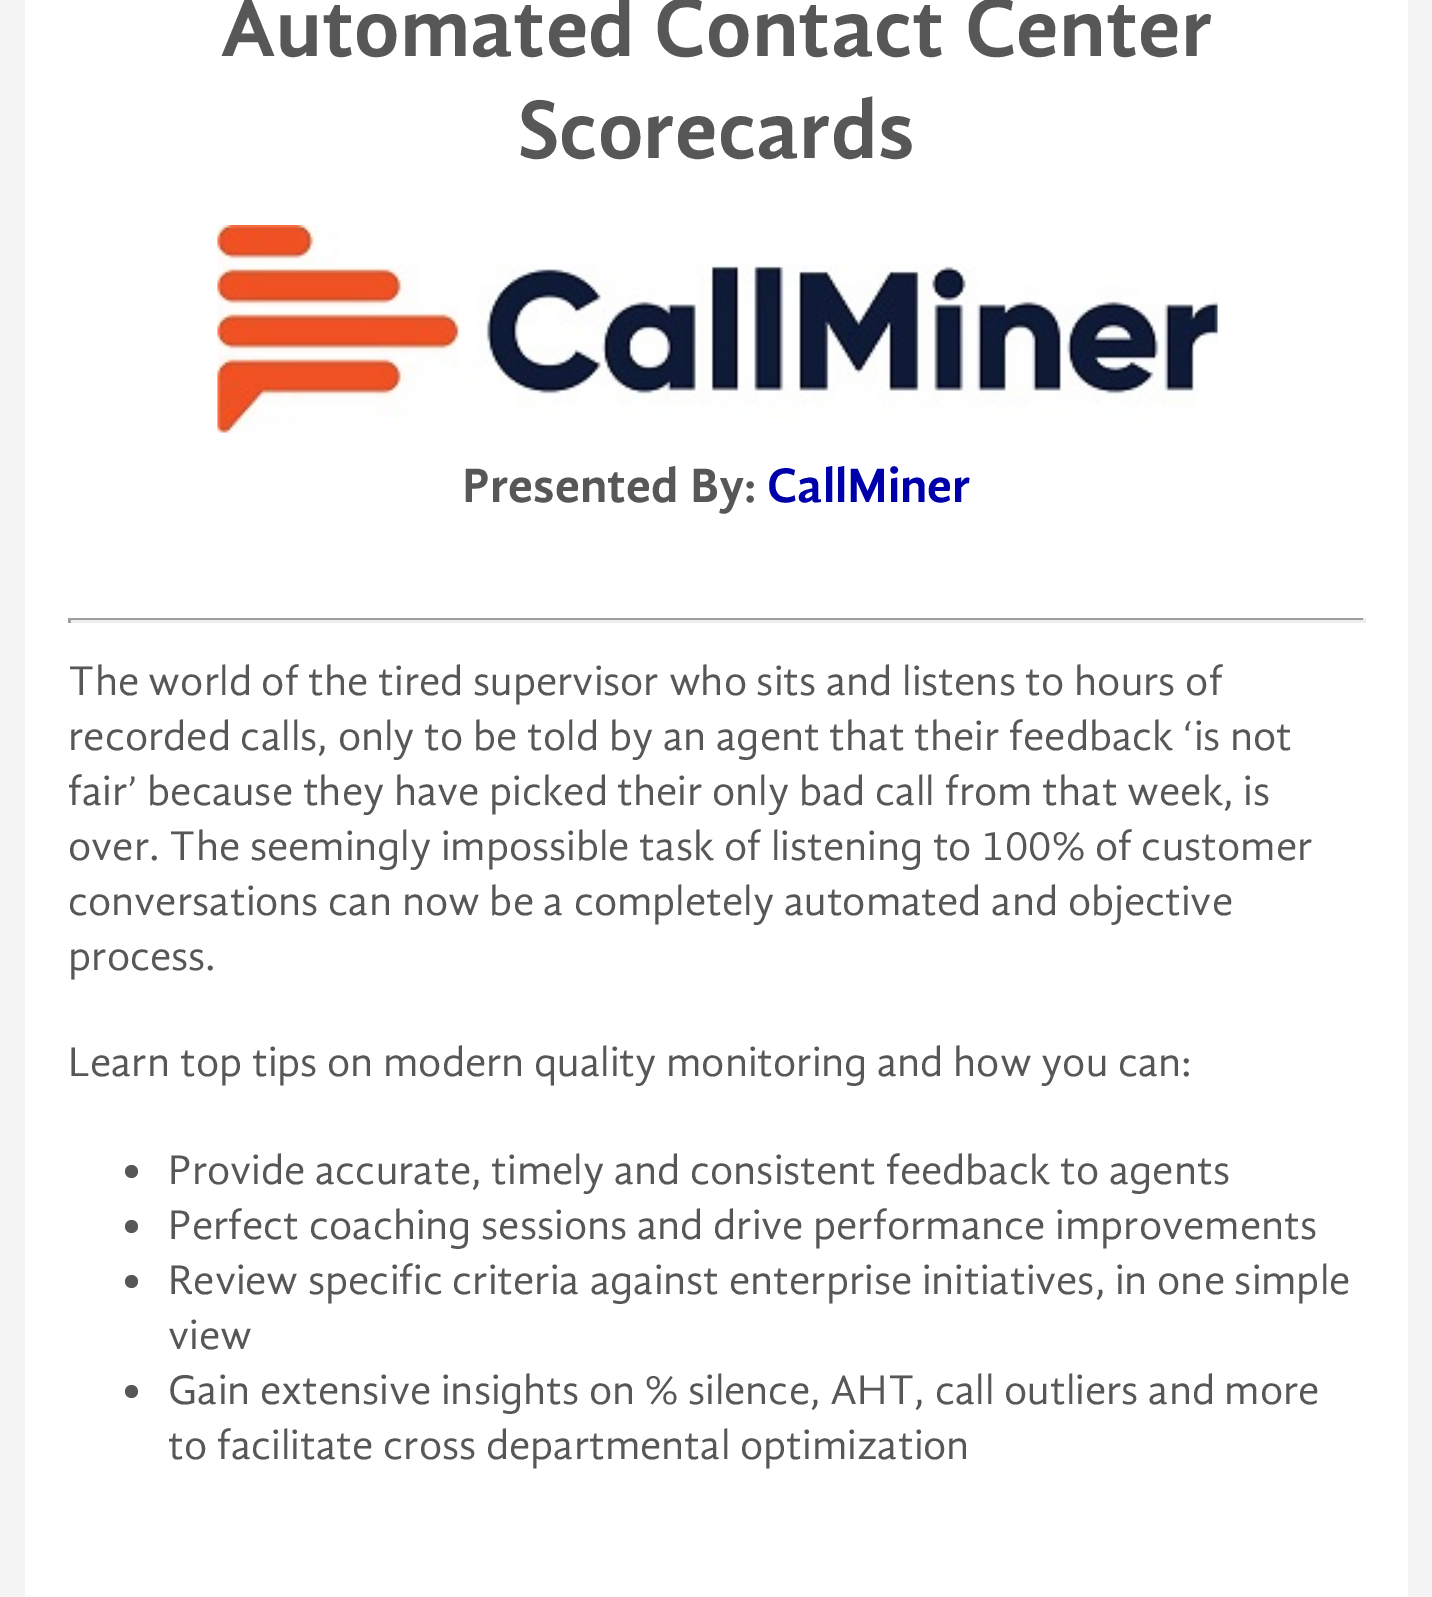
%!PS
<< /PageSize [1432 1597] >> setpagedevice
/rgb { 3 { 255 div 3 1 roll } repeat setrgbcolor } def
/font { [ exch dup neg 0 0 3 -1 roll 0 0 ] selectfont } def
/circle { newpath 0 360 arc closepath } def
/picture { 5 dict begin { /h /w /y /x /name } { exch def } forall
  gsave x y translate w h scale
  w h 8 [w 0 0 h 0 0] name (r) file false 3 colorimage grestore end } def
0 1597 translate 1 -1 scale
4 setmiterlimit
244 244 244 rgb
0 0 1432 1597 rectfill
255 255 255 rgb
25 0 1383 1597 rectfill
(img/1.rgb) 217 225 1001 208 picture
[
  [68 618 1297 2 159 159 159]
  [1363 618 3 5 238 238 238]
  [68 620 1297 3 238 238 238]
  [68 618 3 5 159 159 159]
] { aload pop rgb rectfill } forall
87 87 87 rgb
131.5 1171.5 6.5 circle fill
131.5 1226.5 6.5 circle fill
131.5 1281.5 6.5 circle fill
131.5 1391.5 6.5 circle fill
/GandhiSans-Bold 85 font
220 56 moveto (Automated Contact Center) show
518 158 moveto (Scorecards) show
/GandhiSans-Bold 49.75 font
462 502 moveto (Presented By:) show
0 0 170 rgb
767 502 moveto (CallMiner) show
/GandhiSans-Regular 42.5 font
87 87 87 rgb
[
  [(The world of the tired supervisor who sits and listens to hours of) 68 695]
  [(recorded calls, only to be told by an agent that their feedback ‘is not) 68 750]
  [(fair’ because they have picked their only bad call from that week, is) 68 805]
  [(over. The seemingly impossible task of listening to 100% of customer) 68 860]
  [(conversations can now be a completely automated and objective) 68 915]
  [(process.) 68 970]
  [(Learn top tips on modern quality monitoring and how you can:) 68 1076]
  [(Provide accurate, timely and consistent feedback to agents) 168 1184]
  [(Perfect coaching sessions and drive performance improvements) 168 1239]
  [(Review specific criteria against enterprise initiatives, in one simple) 168 1294]
  [(view) 168 1349]
  [(Gain extensive insights on % silence, AHT, call outliers and more) 168 1404]
  [(to facilitate cross departmental optimization) 168 1459]
] { aload pop moveto show } forall
showpage
